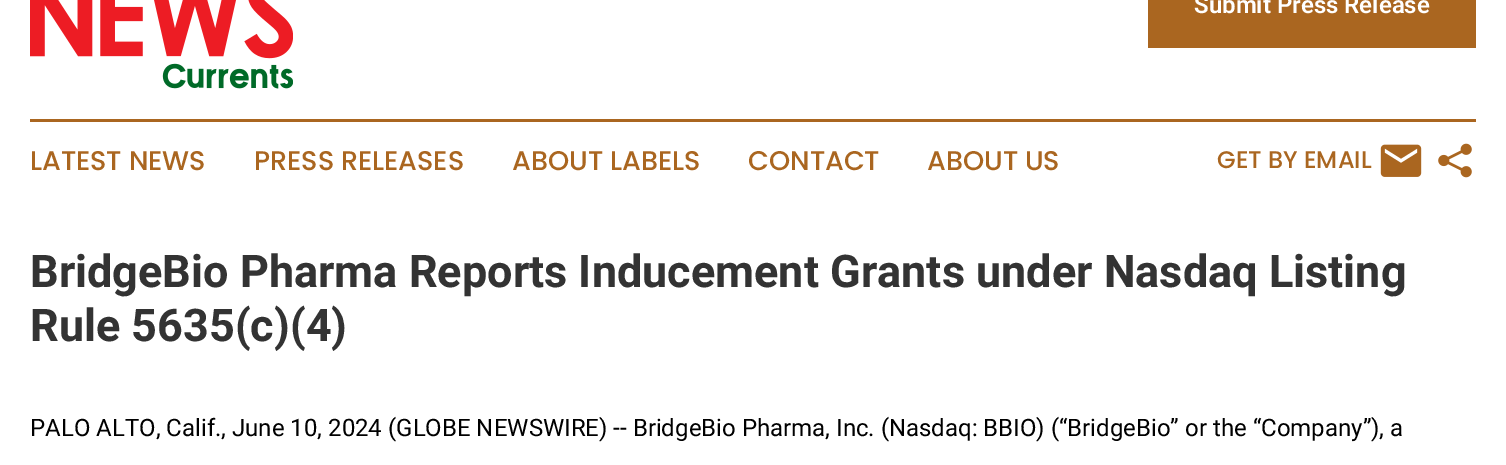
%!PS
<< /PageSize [1506 465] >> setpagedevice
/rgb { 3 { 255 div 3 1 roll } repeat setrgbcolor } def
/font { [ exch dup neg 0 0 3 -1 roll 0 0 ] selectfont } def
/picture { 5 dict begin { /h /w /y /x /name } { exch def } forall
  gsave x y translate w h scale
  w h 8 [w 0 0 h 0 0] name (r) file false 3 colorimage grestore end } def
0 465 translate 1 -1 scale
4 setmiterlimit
255 255 255 rgb
0 0 1506 465 rectfill
(img/1.rgb) 30 0 263 89 picture
170 102 32 rgb
1148 0 328 48 rectfill
30 119 1446 3 rectfill
(img/2.rgb) 1380 144 42 33 picture
(img/3.rgb) 1438 143 34 35 picture
/Roboto-SemiBold 24 font
255 255 255 rgb
1194 13 moveto (Submit Press Release) show
/Poppins-Medium 27 font
170 102 32 rgb
[
  [(LATEST NEWS) 30 170]
  [(PRESS RELEASES) 254 170]
  [(ABOUT LABELS) 512 170]
  [(CONTACT) 748 170]
  [(ABOUT US) 927 170]
] { aload pop moveto show } forall
/Poppins-Medium 24 font
1217 168 moveto (GET BY EMAIL) show
/Roboto-Bold 45 font
51 51 51 rgb
30 287 moveto (BridgeBio Pharma Reports Inducement Grants under Nasdaq Listing) show
30 341 moveto (Rule 5635\(c\)\(4\)) show
/Roboto-Regular 24 font
0 0 0 rgb
30 436 moveto (PALO ALTO, Calif., June 10, 2024 \(GLOBE NEWSWIRE\) -- BridgeBio Pharma, Inc. \(Nasdaq: BBIO\) \(“BridgeBio” or the “Company”\), a) show
showpage
